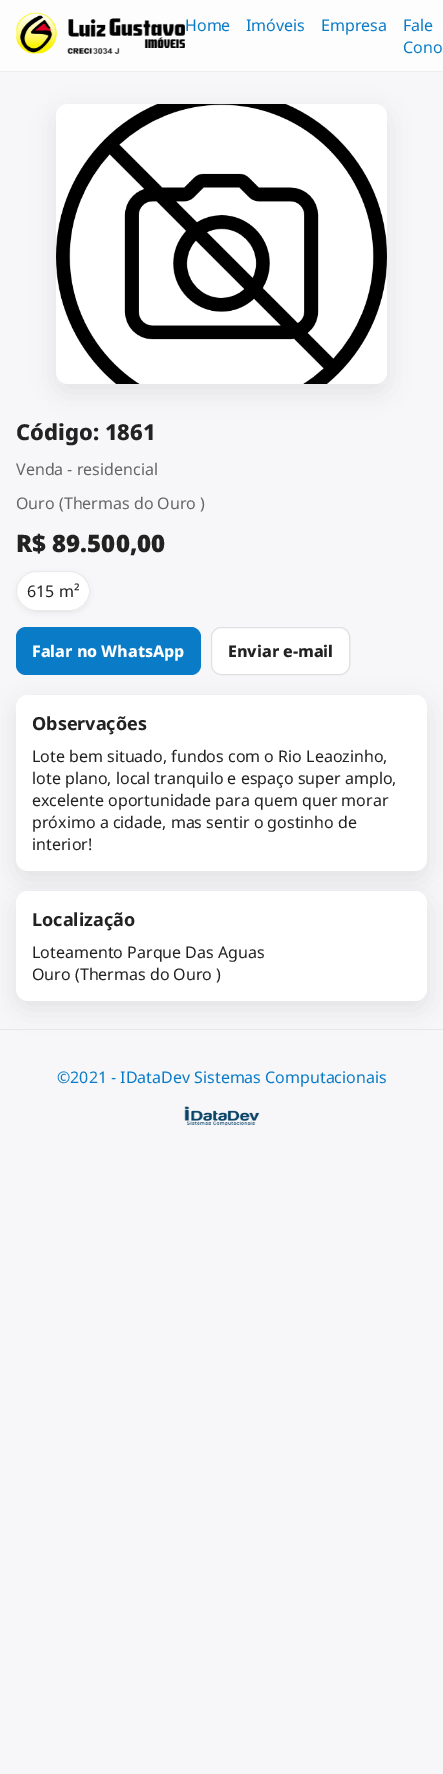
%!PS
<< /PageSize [443 1774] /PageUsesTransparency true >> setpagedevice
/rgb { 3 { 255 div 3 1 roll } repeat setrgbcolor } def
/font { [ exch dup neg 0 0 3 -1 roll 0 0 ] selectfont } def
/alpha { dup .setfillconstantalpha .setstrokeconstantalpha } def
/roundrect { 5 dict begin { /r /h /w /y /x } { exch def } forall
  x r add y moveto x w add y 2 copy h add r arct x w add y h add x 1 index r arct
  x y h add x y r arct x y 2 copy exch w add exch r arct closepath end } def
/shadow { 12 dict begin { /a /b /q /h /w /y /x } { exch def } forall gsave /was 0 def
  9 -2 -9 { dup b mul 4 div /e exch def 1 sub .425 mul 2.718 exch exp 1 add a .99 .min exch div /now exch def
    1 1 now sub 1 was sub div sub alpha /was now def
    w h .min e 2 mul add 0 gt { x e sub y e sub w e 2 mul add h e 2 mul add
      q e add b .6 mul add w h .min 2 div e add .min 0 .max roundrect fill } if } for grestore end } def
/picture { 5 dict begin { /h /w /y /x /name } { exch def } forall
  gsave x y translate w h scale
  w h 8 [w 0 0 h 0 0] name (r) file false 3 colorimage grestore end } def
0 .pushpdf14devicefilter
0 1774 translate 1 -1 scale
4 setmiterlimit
247 247 249 rgb
0 0 443 1774 rectfill
253 253 254 rgb
0 0 443 71 rectfill
238 238 239 rgb
0 71 443 1 rectfill
(img/1.rgb) 16 12 169 42 picture
0 0 0 rgb
56 112 331 280 12 12 0.08 shadow
255 255 255 rgb
56 104 331 280 12 roundrect fill
(img/2.rgb) 56 104 331 280 picture
0 0 0 rgb
16 573 74 40 20 3 0.05 shadow
255 255 255 rgb
16 571 74 40 20 roundrect fill
0.08 alpha
0 0 0 rgb
16.5 571.5 73 39 19.5 roundrect stroke
1 alpha
16 703 411 176 12 12 0.08 shadow
10 124 199 rgb
16 627 185 48 10 roundrect fill
255 255 255 rgb
211 627 139 48 10 roundrect fill
0.12 alpha
0 0 0 rgb
211.5 627.5 138 47 9.5 roundrect stroke
1 alpha
255 255 255 rgb
16 695 411 176 12 roundrect fill
0 0 0 rgb
16 899 411 110 12 12 0.08 shadow
255 255 255 rgb
16 891 411 110 12 roundrect fill
231 231 233 rgb
0 1029 443 1 rectfill
(img/3.rgb) 184 1106 76 20 picture
/NotoSans-Regular 16 font
10 124 199 rgb
[
  [(Home) 185 31]
  [(Imóveis) 246 31]
  [(Empresa) 321 31]
  [(Fale) 403 31]
  [(Cono) 403 53]
] { aload pop moveto show } forall
/NotoSans-ExtraBold 22 font
34 34 34 rgb
16 440 moveto (Código: 1861) show
/NotoSans-Regular 16 font
102 102 102 rgb
16 475 moveto (Venda - residencial) show
16 509 moveto (Ouro \(Thermas do Ouro \)) show
/NotoSans-Black 24 font
34 34 34 rgb
16 552 moveto (R$ 89.500,00) show
/NotoSans-Regular 16 font
27 597 moveto (615 m²) show
/NotoSans-ExtraBold 16 font
255 255 255 rgb
32 657 moveto (Falar no WhatsApp) show
34 34 34 rgb
228 657 moveto (Enviar e-mail) show
/NotoSans-Bold 18 font
32 730 moveto (Observações) show
/NotoSans-Regular 16 font
[
  [(Lote bem situado, fundos com o Rio Leaozinho,) 32 762]
  [(lote plano, local tranquilo e espaço super amplo,) 32 784]
  [(excelente oportunidade para quem quer morar) 32 806]
  [(próximo a cidade, mas sentir o gostinho de) 32 828]
  [(interior!) 32 850]
] { aload pop moveto show } forall
/NotoSans-Bold 18 font
32 926 moveto (Localização) show
/NotoSans-Regular 16 font
32 958 moveto (Loteamento Parque Das Aguas) show
32 980 moveto (Ouro \(Thermas do Ouro \)) show
10 124 199 rgb
57 1083 moveto (©2021 - IDataDev Sistemas Computacionais) show
.poppdf14devicefilter showpage
